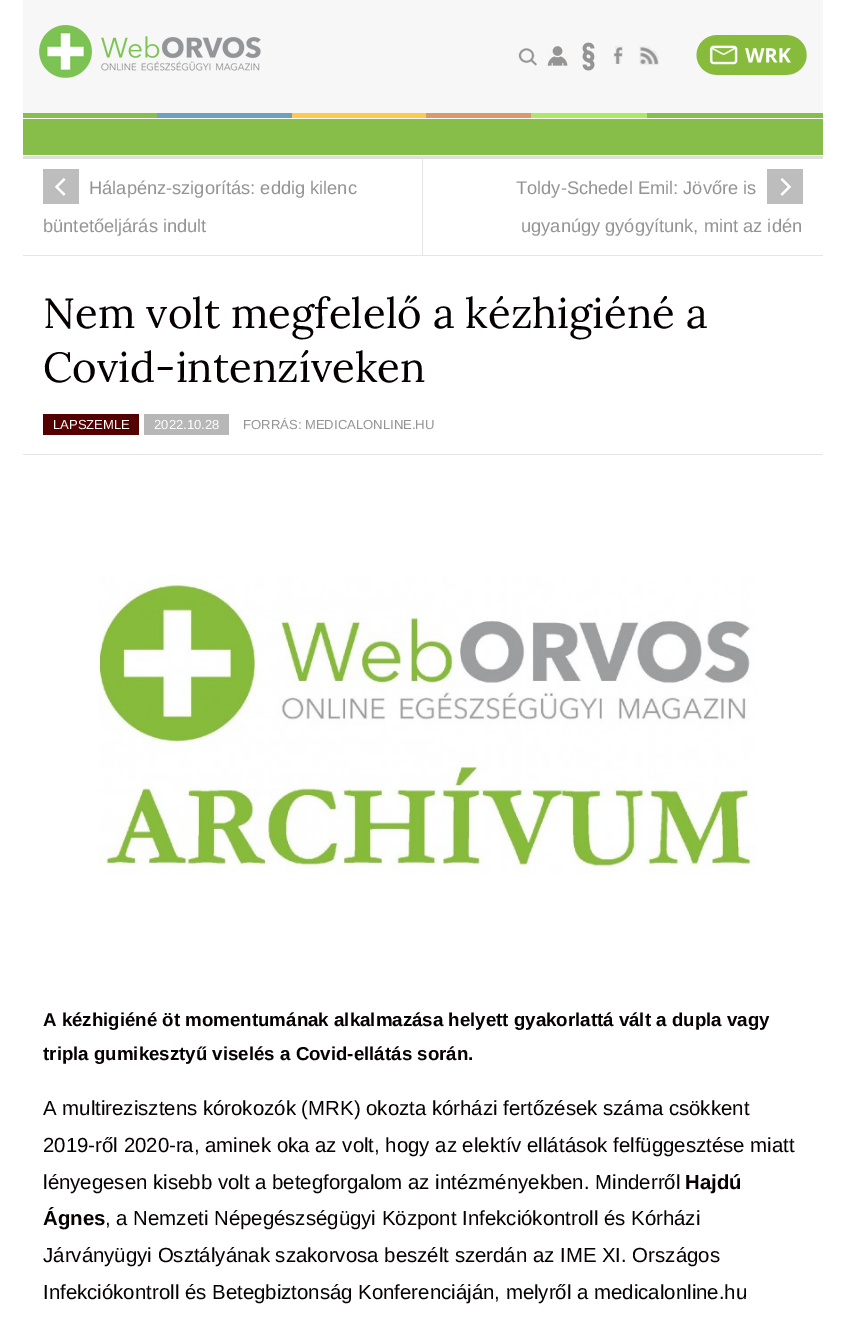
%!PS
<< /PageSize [845 1321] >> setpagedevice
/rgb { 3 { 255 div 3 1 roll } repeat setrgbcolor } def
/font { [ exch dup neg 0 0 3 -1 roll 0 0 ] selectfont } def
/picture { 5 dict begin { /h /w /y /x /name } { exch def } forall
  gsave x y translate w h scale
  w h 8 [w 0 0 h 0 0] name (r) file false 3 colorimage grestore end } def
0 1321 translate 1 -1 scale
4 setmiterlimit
255 255 255 rgb
0 0 845 1321 rectfill
247 247 247 rgb
23 0 800 113 rectfill
(img/1.rgb) 39 25 222 53 picture
(img/2.rgb) 518 48 19 18 picture
(img/3.rgb) 547 46 21 20 picture
(img/4.rgb) 582 42 13 29 picture
(img/5.rgb) 613 46 10 18 picture
(img/6.rgb) 639 46 20 19 picture
(img/7.rgb) 696 35 111 40 picture
(img/8.rgb) 23 113 800 5 picture
(img/9.rgb) 23 118 800 41 picture
229 229 229 rgb
422 159 1 97 rectfill
23 255 800 1 rectfill
(img/10.rgb) 43 169 36 35 picture
(img/11.rgb) 767 169 36 35 picture
[
  [23 454 800 1 229 229 229]
  [43 414 96 21 85 0 0]
  [144 414 85 21 183 183 183]
] { aload pop rgb rectfill } forall
(img/12.rgb) 98 575 658 299 picture
/LiberationSans-Regular 18.25 font
148 148 148 rgb
[
  [(Hálapénz-szigorítás: eddig kilenc) 89 194]
  [(büntetőeljárás indult) 43 232]
  [(Toldy-Schedel Emil: Jövőre is) 516 194]
  [(ugyanúgy gyógyítunk, mint az idén) 521 232]
] { aload pop moveto show } forall
/Lora-Regular 42 font
6 0 0 rgb
43 328 moveto (Nem volt megfelelő a kézhigiéné a) show
43 382 moveto (Covid-intenzíveken) show
/LiberationSans-Regular 13.1 font
255 255 255 rgb
53 429 moveto (LAPSZEMLE) show
154 429 moveto (2022.10.28) show
148 148 148 rgb
243 429 moveto (FORRÁS: MEDICALONLINE.HU) show
/LiberationSans-Bold 18.7 font
6 0 0 rgb
43 1026 moveto (A kézhigiéné öt momentumának alkalmazása helyett gyakorlattá vált a dupla vagy) show
43 1060 moveto (tripla gumikesztyű viselés a Covid-ellátás során.) show
/LiberationSans-Regular 20.4 font
[
  [(A multirezisztens kórokozók \(MRK\) okozta kórházi fertőzések száma csökkent) 43 1115]
  [(2019-ről 2020-ra, aminek oka az volt, hogy az elektív ellátások felfüggesztése miatt) 43 1152]
  [(lényegesen kisebb volt a betegforgalom az intézményekben. Minderről) 43 1189]
] { aload pop moveto show } forall
/LiberationSans-Bold 20.4 font
685 1189 moveto (Hajdú) show
43 1225 moveto (Ágnes) show
/LiberationSans-Regular 20.4 font
[
  [(, a Nemzeti Népegészségügyi Központ Infekciókontroll és Kórházi) 105 1225]
  [(Járványügyi Osztályának szakorvosa beszélt szerdán az IME XI. Országos) 43 1262]
  [(Infekciókontroll és Betegbiztonság Konferenciáján, melyről a medicalonline.hu) 43 1299]
] { aload pop moveto show } forall
showpage
